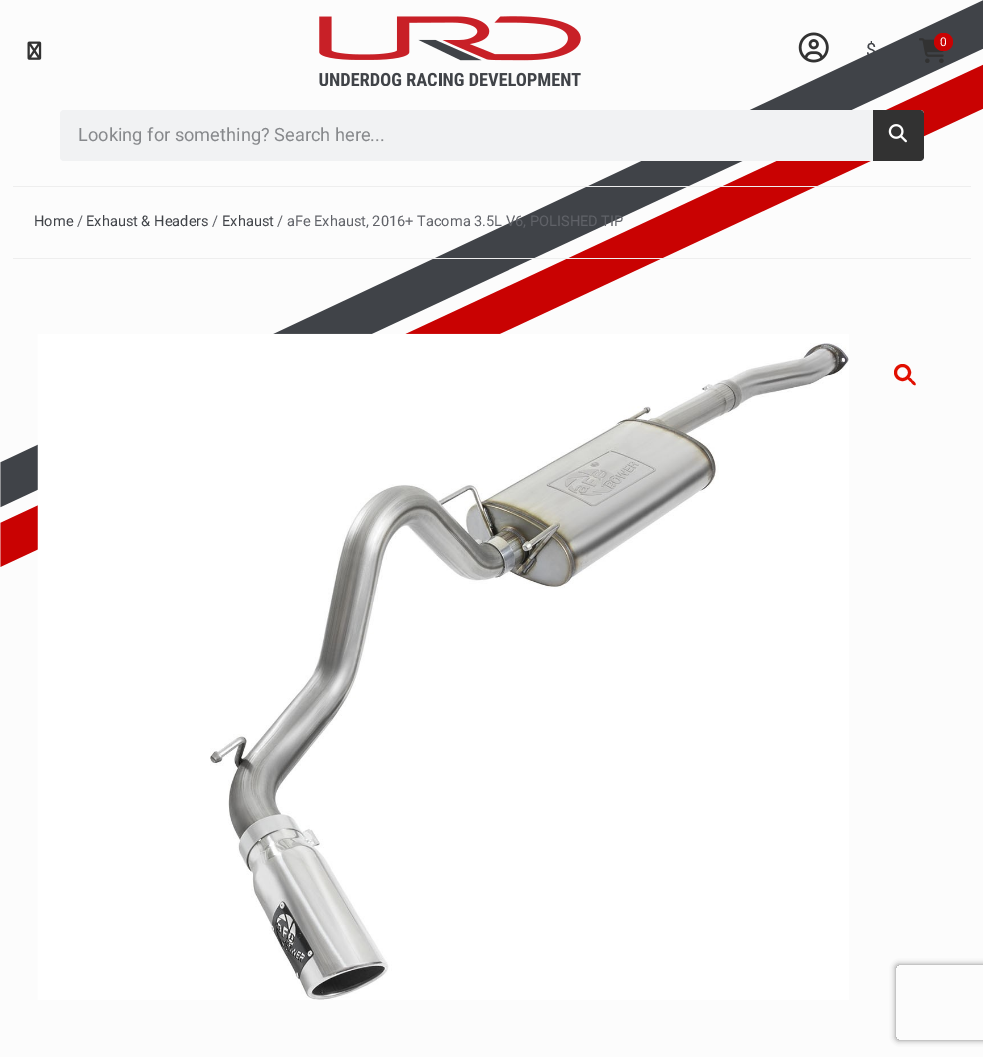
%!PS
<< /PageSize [983 1057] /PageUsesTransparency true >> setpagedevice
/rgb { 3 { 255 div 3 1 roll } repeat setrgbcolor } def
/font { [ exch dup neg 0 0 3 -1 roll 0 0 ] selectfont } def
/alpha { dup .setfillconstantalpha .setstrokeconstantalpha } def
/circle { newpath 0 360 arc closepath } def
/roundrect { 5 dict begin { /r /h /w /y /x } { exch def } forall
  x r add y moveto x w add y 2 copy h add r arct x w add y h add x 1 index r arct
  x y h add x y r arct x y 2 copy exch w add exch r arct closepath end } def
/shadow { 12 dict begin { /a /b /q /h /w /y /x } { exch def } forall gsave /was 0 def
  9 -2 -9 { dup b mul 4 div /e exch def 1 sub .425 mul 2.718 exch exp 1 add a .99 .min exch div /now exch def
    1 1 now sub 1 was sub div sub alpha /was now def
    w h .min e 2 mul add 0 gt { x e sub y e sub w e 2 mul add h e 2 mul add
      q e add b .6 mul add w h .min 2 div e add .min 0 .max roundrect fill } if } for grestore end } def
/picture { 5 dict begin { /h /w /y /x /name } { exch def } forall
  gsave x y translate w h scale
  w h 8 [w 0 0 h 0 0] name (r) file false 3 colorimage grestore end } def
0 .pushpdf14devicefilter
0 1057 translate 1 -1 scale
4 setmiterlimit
252 252 252 rgb
0 0 983 1057 rectfill
(img/1.rgb) 0 0 983 567 picture
(img/2.rgb) 27 41 15 19 picture
(img/3.rgb) 319 16 262 70 picture
(img/4.rgb) 798 32 31 31 picture
(img/5.rgb) 919 38 26 25 picture
201 2 2 rgb
934 33 19 18 9 roundrect fill
241 242 243 rgb
60 110 864 51 4 roundrect fill
50 50 50 rgb
873 110 moveto 920 110 lineto 922 110 924 112 924 114 curveto 924 157 lineto 924 159 922 161 920 161 curveto 873 161 lineto closepath fill
(img/6.rgb) 888 124 19 19 picture
238 238 238 rgb
13 186 958 1 rectfill
13 258 958 1 rectfill
(img/7.rgb) 37 333 812 667 picture
225 15 0 rgb
3 setlinewidth
902.5 372.5 7 circle stroke
908 378 moveto 909.5 376.5 912 379.5 912.5 380.5 curveto 913.5 381 916.5 383.5 915.5 385 curveto 914 386 911.5 383 911 382 curveto 910 381.5 907 379 908 378 curveto closepath fill
gsave
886 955 moveto 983 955 lineto 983 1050 lineto 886 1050 lineto closepath 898.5 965 moveto 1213.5 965 lineto 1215 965 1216 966 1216 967.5 curveto 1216 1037.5 lineto 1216 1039 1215 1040 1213.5 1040 curveto 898.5 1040 lineto 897 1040 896 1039 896 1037.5 curveto 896 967.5 lineto 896 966 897 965 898.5 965 curveto closepath eoclip newpath
128 128 128 rgb
896 965 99 75 2.5 3 1 shadow
grestore
/Roboto-Regular 18.25 font
64 67 72 rgb
866 56 moveto ($) show
/Roboto-Regular 12 font
255 255 255 rgb
940 46 moveto (0) show
/Roboto-Regular 18.25 font
135 137 140 rgb
78 141 moveto (Looking for something? Search here...) show
/Roboto-Regular 14.6 font
64 67 72 rgb
34 226 moveto (Home) show
96 98 104 rgb
77 226 moveto (/) show
64 67 72 rgb
86 226 moveto (Exhaust & Headers) show
96 98 104 rgb
212 226 moveto (/) show
64 67 72 rgb
222 226 moveto (Exhaust) show
96 98 104 rgb
277 226 moveto (/ aFe Exhaust, 2016+ Tacoma 3.5L V6, POLISHED TIP) show
.poppdf14devicefilter showpage
